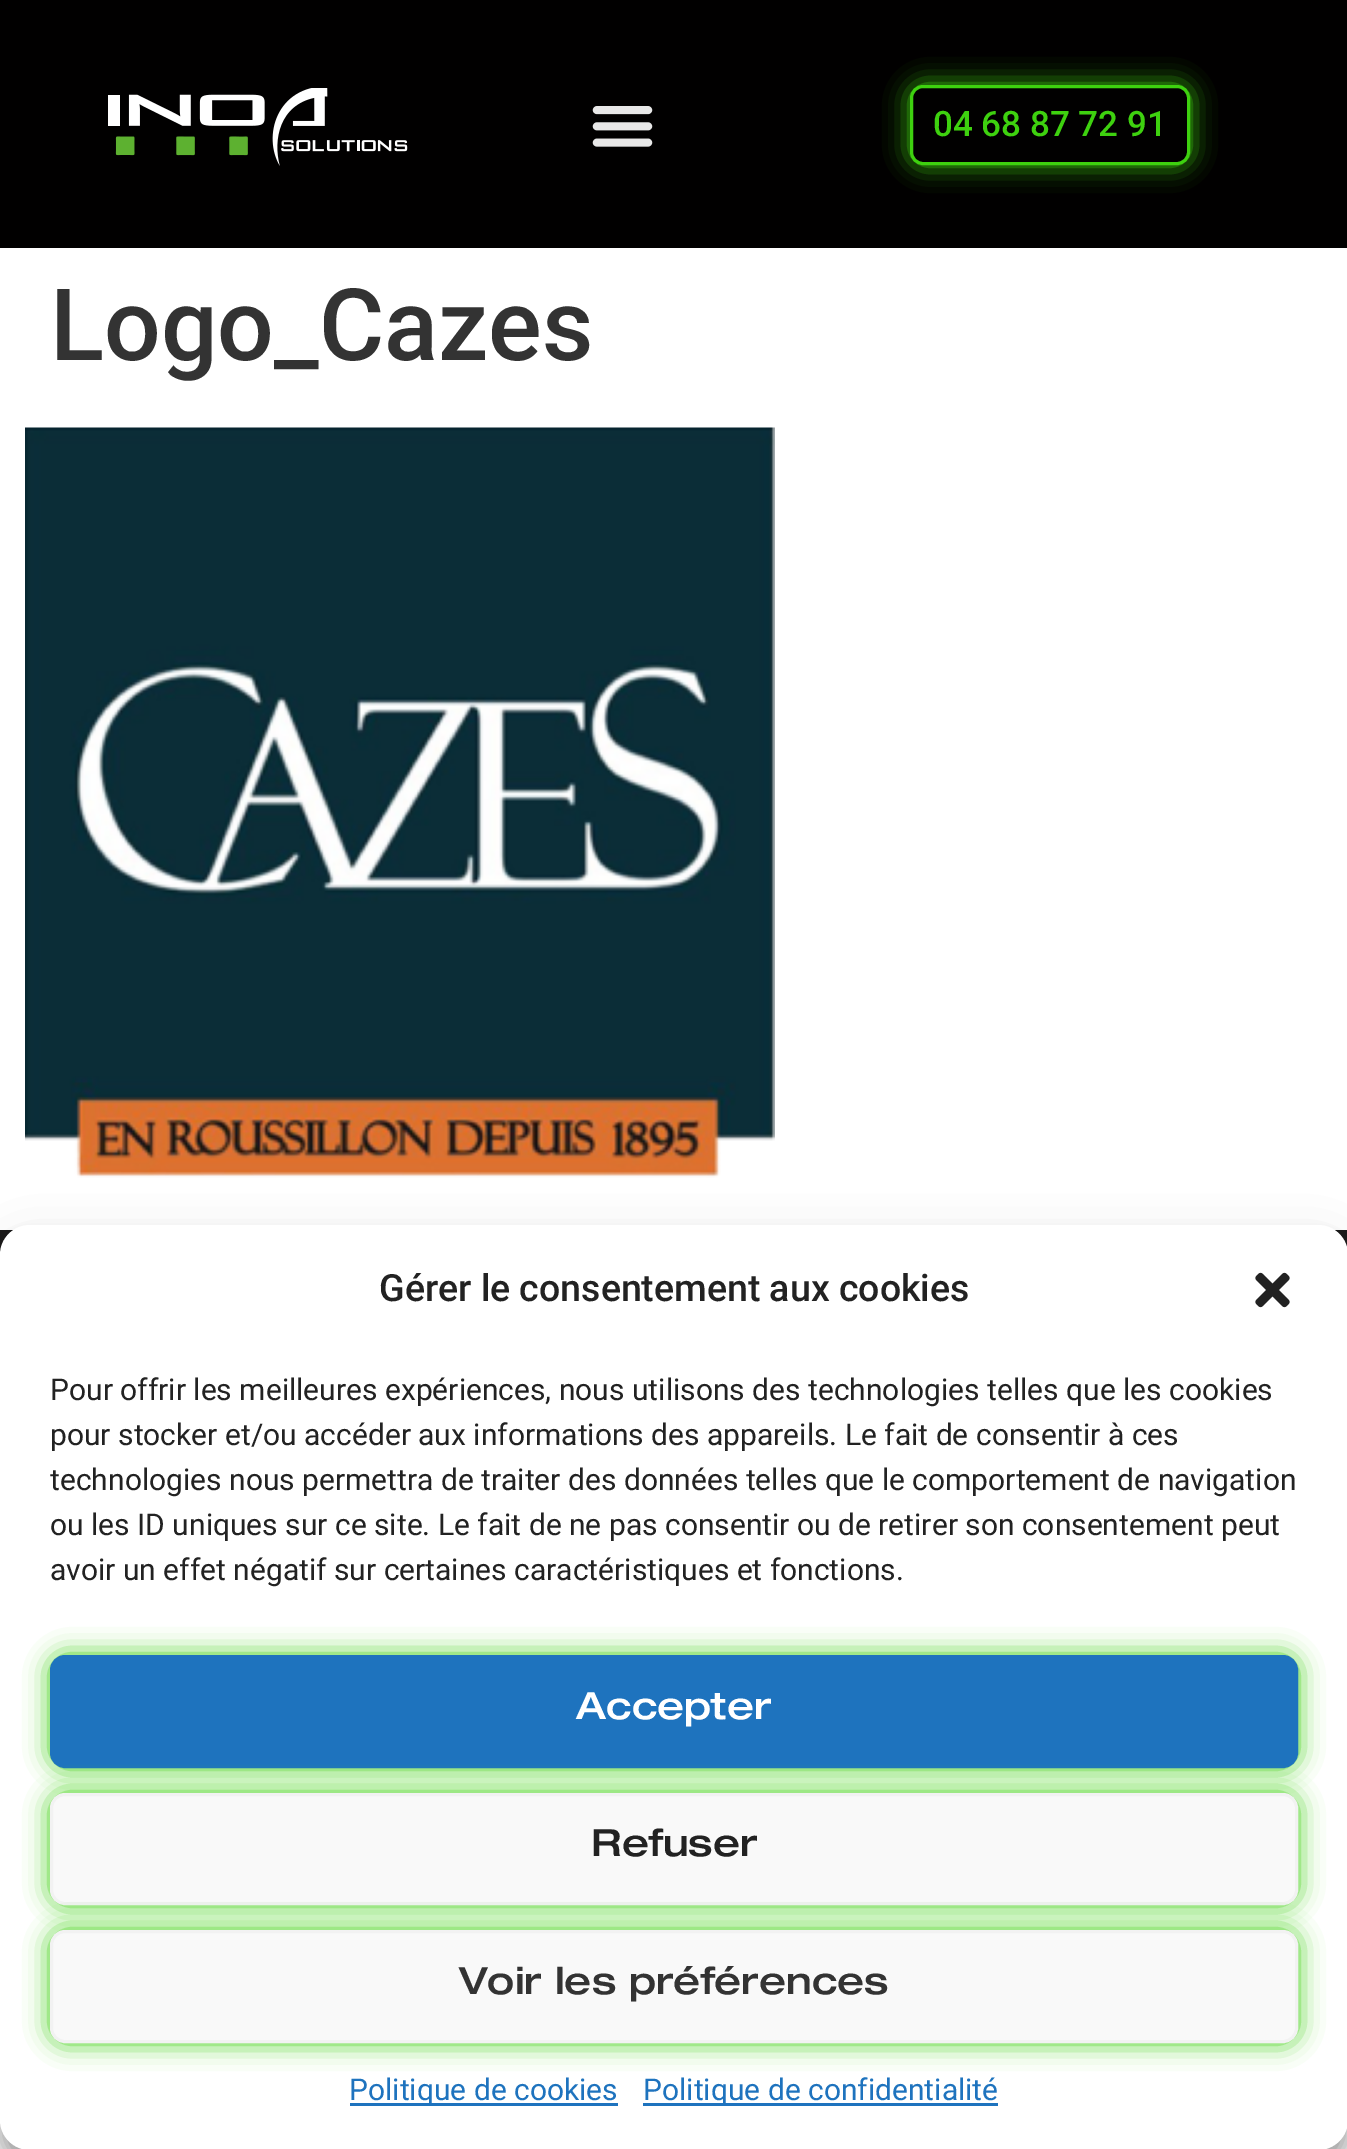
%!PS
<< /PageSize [1347 2149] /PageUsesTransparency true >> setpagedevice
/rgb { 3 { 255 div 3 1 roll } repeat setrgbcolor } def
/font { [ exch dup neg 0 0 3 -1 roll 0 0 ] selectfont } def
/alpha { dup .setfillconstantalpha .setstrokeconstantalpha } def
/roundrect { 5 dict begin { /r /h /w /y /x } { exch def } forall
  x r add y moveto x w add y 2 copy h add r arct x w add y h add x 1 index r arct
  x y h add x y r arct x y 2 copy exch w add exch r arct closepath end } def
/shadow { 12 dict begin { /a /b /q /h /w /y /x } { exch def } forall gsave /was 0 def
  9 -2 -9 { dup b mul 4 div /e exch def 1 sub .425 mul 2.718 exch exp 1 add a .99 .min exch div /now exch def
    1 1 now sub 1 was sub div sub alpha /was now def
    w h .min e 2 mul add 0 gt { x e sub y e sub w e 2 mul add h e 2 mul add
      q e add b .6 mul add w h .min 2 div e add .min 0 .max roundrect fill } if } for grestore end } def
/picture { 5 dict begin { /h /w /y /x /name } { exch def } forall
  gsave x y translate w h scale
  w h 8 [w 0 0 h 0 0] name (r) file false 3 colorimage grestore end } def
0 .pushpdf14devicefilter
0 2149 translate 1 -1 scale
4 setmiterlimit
255 255 255 rgb
0 0 1347 2149 rectfill
1 0 0 rgb
0 0 1347 248 rectfill
(img/1.rgb) 108 88 300 78 picture
(img/2.rgb) 592 106 61 41 picture
gsave
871 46 moveto 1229 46 lineto 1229 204 lineto 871 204 lineto closepath 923 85 moveto 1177 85 lineto 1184 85 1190 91 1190 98 curveto 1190 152 lineto 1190 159 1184 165 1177 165 curveto 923 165 lineto 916 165 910 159 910 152 curveto 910 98 lineto 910 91 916 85 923 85 curveto closepath eoclip newpath
62 209 15 rgb
910 85 280 80 13 12.5 1 shadow
grestore
62 209 15 rgb
3 setlinewidth
911.5 86.5 277 77 11.5 roundrect stroke
(img/3.rgb) 25 427 750 751 picture
26 25 25 rgb
0 1230 1347 25 rectfill
0 0 0 rgb
0 1240 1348 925 30 7.5 0.23 shadow
0 1250 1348 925 30 25 0.19 shadow
255 255 255 rgb
0 1225 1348 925 30 roundrect fill
(img/4.rgb) 1255 1272 35 36 picture
62 209 15 rgb
50 1655 1248 113 15 12.5 1 shadow
30 115 190 rgb
51.5 1656.5 1245 110 13.5 roundrect gsave fill grestore
stroke
62 209 15 rgb
50 1793 1248 112 15 12.5 1 shadow
249 249 249 rgb
51.5 1794.5 1245 109 13.5 roundrect gsave fill grestore
242 242 242 rgb
stroke
62 209 15 rgb
50 1930 1248 113 15 12.5 1 shadow
249 249 249 rgb
51.5 1931.5 1245 110 13.5 roundrect gsave fill grestore
242 242 242 rgb
stroke
30 115 190 rgb
350 2103 268 3 rectfill
643 2103 355 3 rectfill
/Roboto-Medium 35 font
62 209 15 rgb
933 136 moveto (04 68 87 72 91) show
/Roboto-Medium 100 font
51 51 51 rgb
50 360 moveto (Logo_Cazes) show
/Roboto-Medium 37.5 font
34 34 34 rgb
379 1301 moveto (Gérer le consentement aux cookies) show
/Roboto-Regular 30 font
[
  [(Pour offrir les meilleures expériences, nous utilisons des technologies telles que les cookies) 50 1400]
  [(pour stocker et/ou accéder aux informations des appareils. Le fait de consentir à ces) 50 1445]
  [(technologies nous permettra de traiter des données telles que le comportement de navigation) 50 1490]
  [(ou les ID uniques sur ce site. Le fait de ne pas consentir ou de retirer son consentement peut) 50 1535]
  [(avoir un effet négatif sur certaines caractéristiques et fonctions.) 50 1580]
] { aload pop moveto show } forall
/HelveticaNeue-Medium 37.5 font
255 255 255 rgb
576 1719 moveto (Accepter) show
34 34 34 rgb
591 1856 moveto (Refuser) show
51 51 51 rgb
459 1994 moveto (Voir les préférences) show
/Roboto-Regular 30 font
30 115 190 rgb
349 2100 moveto (Politique de cookies) show
643 2100 moveto (Politique de confidentialité) show
.poppdf14devicefilter showpage
